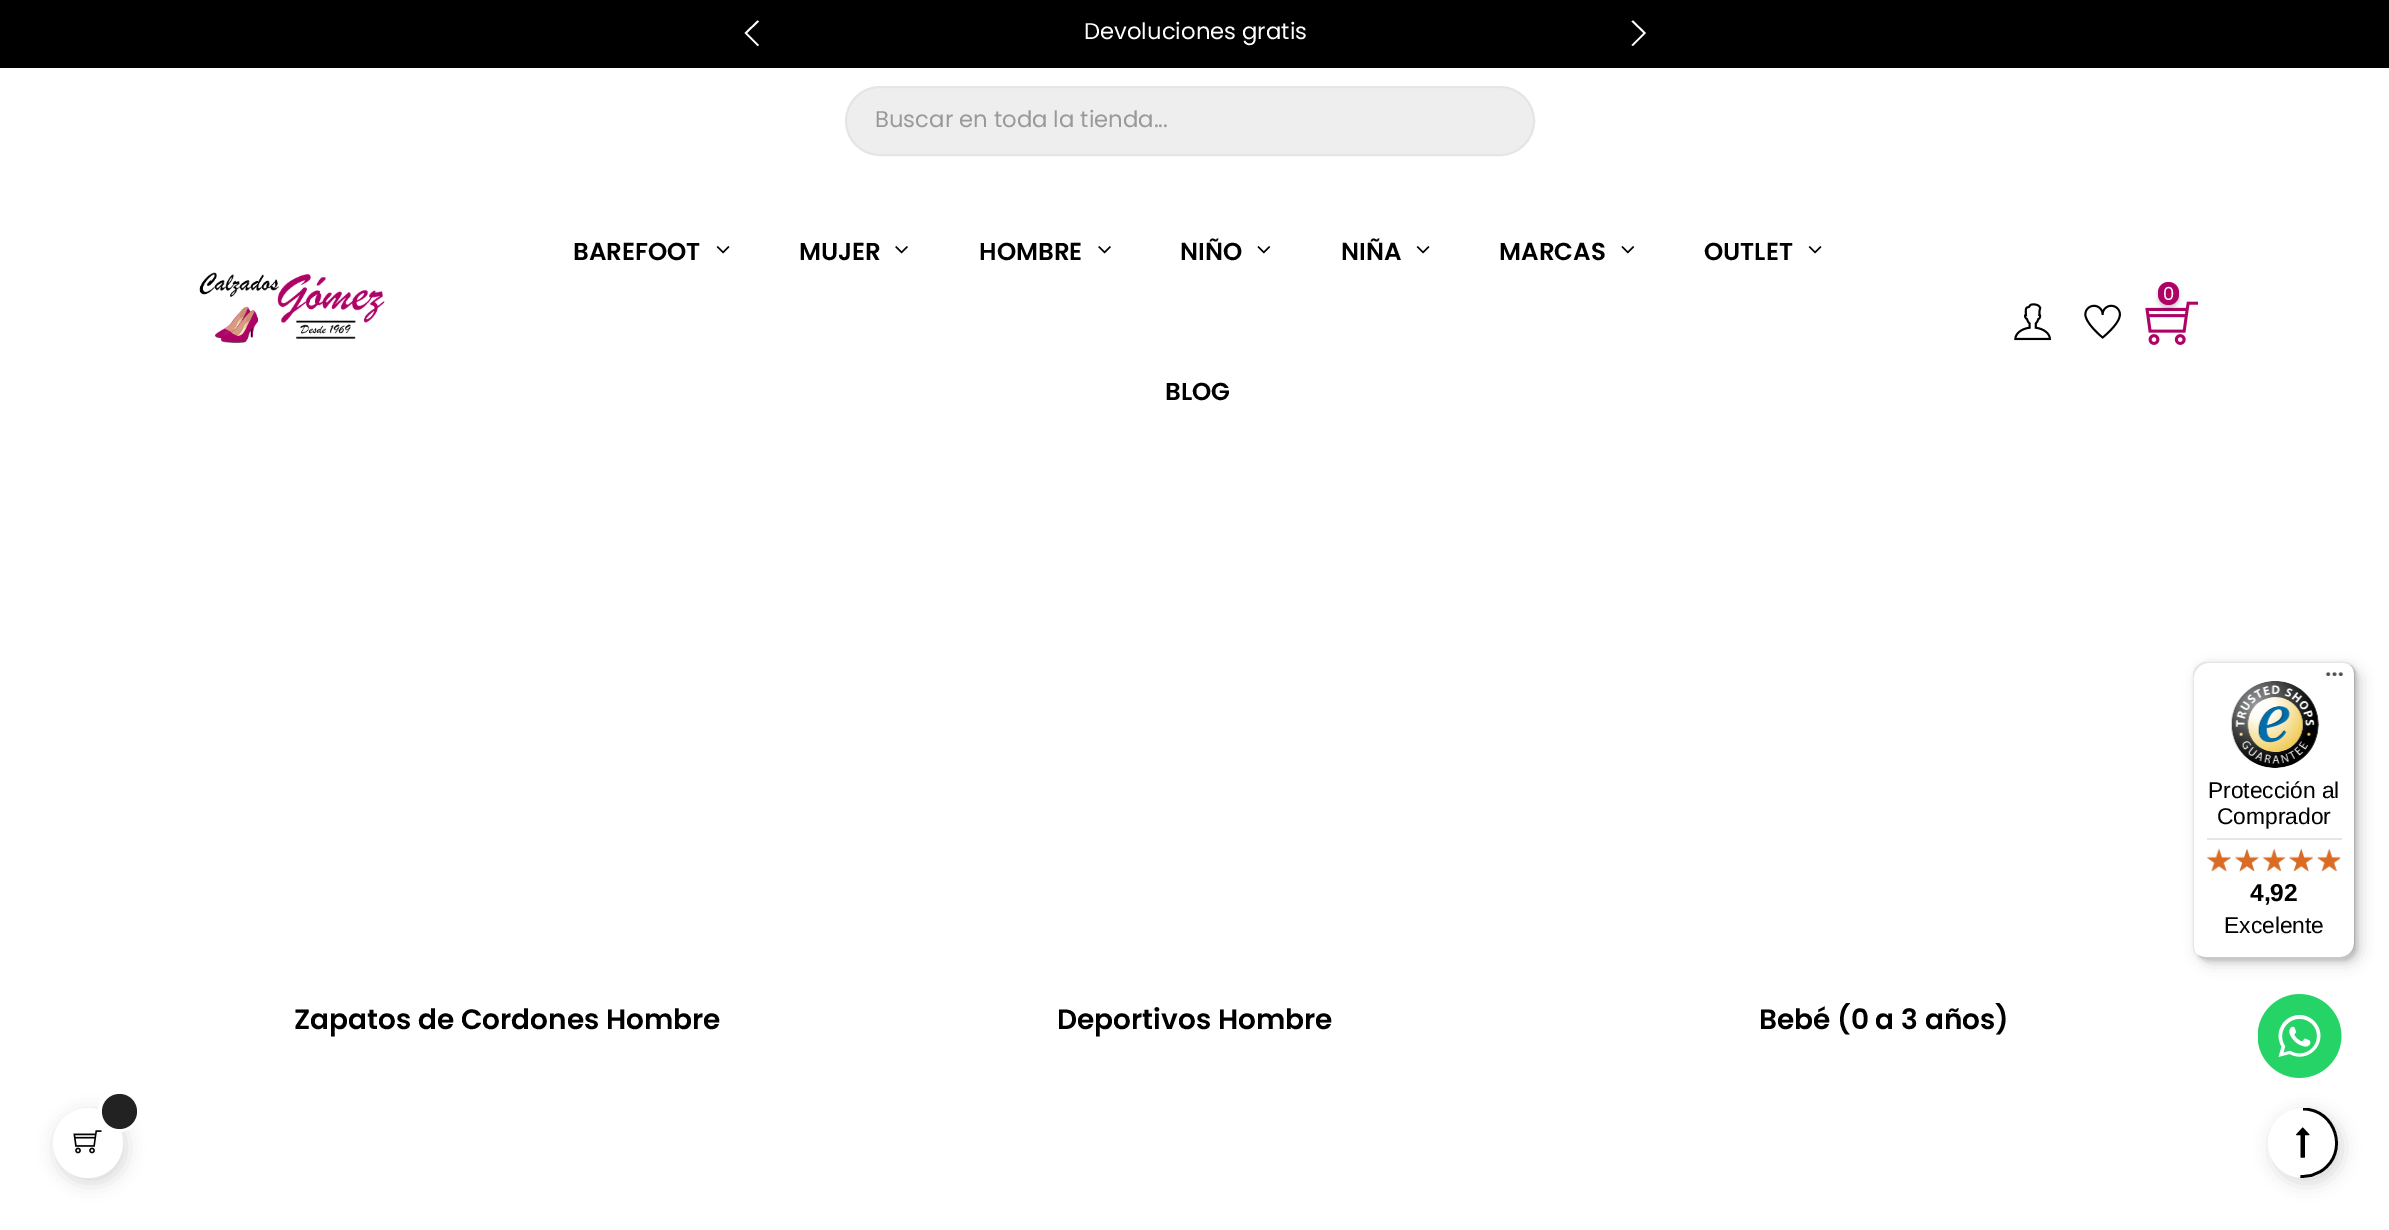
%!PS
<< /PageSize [2389 1230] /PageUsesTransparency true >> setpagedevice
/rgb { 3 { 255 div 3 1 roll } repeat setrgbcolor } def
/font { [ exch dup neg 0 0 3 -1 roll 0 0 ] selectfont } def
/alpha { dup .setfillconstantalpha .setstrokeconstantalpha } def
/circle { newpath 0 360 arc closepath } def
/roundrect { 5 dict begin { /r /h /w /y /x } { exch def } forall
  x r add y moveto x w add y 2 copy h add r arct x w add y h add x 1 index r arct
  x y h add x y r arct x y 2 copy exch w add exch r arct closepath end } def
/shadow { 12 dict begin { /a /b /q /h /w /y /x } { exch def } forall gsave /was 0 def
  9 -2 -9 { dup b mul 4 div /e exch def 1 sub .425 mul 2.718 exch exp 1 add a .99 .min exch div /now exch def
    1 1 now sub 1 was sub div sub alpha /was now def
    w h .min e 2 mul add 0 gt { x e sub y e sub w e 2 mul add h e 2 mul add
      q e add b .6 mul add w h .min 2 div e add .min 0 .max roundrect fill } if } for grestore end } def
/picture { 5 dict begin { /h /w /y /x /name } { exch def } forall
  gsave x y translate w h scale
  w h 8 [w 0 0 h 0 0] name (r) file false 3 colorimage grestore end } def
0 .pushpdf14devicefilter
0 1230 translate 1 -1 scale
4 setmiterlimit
255 255 255 rgb
0 0 2389 1230 rectfill
0 0 0 rgb
0 0 2389 68 rectfill
255 255 255 rgb
747 33 moveto 759 45 lineto 757.5 46 lineto 744.5 33 lineto 757.5 20.5 lineto 759 21.5 lineto closepath fill
1646 33 moveto 1633 46 lineto 1631.5 45 lineto 1643.5 33 lineto 1631.5 21.5 lineto 1633 20.5 lineto closepath fill
238 238 238 rgb
846 87 688 68 34 roundrect gsave fill grestore
229 229 229 rgb
2 setlinewidth
stroke
(img/1.rgb) 199 272 186 71 picture
(img/2.rgb) 716 246 14 8 picture
(img/3.rgb) 895 246 13 8 picture
(img/3.rgb) 1098 246 13 8 picture
(img/4.rgb) 1257 246 14 8 picture
(img/2.rgb) 1416 246 14 8 picture
(img/4.rgb) 1621 246 14 8 picture
(img/2.rgb) 1808 246 14 8 picture
(img/5.rgb) 2145 301 53 44 picture
0 0 0 rgb
2158 285 21 23 10.5 2 0.2 shadow
173 3 103 rgb
2158 282 21 23 10.5 roundrect fill
(img/6.rgb) 2014 303 37 38 picture
(img/7.rgb) 2084 304 37 35 picture
(img/8.rgb) 2258 994 84 84 picture
0 0 0 rgb
2272 1113 70 70 35 9 0.15 shadow
255 255 255 rgb
2303 1143 35 circle fill
gsave
2268 1108 70 70 rectclip
0 0 0 rgb
2.7 setlinewidth
2303 1109 moveto 2336 1109 2349 1152.5 2322 1170.5 curveto 2315.5 1175 2308 1177 2300.5 1176.5 curveto stroke
grestore
(img/9.rgb) 2296 1127 14 31 picture
0 0 0 rgb
2198 667 163 297 14 7 0.15 shadow
2195 663 162 298 14 2 0.15 shadow
255 255 255 rgb
2193 662 163 297 14 roundrect fill
0.1 alpha
0 0 0 rgb
2208 663 moveto 2343 663 lineto 2347 663 2351 665 2353 668 curveto 2351 664 2347 662 2342 662 curveto 2207 662 lineto 2199 662 2193 668 2193 676 curveto 2193 945 lineto 2193 948 2194 951 2196 954 curveto 2195 952 2194 949 2194 947 curveto 2194 677 lineto 2194 670 2201 663 2208 663 curveto closepath fill
0.2 alpha
2197 954 moveto 2199 957 2203 959 2207 959 curveto 2342 959 lineto 2350 959 2356 953 2356 945 curveto 2356 676 lineto 2356 671 2354 667 2350 665 curveto 2353 667 2354 670 2354 674 curveto 2354 943 lineto 2354 951 2347 957 2340 957 curveto 2205 957 lineto 2202 957 2199 956 2197 954 curveto closepath fill
50 50 50 rgb
2198 955 moveto 2200 958 2203 959 2207 959 curveto 2342 959 lineto 2350 959 2356 953 2356 945 curveto 2356 676 lineto 2356 671 2354 667 2350 665 curveto 2353 667 2354 671 2354 674 curveto 2354 944 lineto 2354 952 2348 958 2340 958 curveto 2206 958 lineto 2203 958 2200 957 2198 955 curveto closepath fill
0.3 alpha
255 255 255 rgb
2198 955 moveto 2200 958 2203 959 2207 959 curveto 2342 959 lineto 2350 959 2356 953 2356 945 curveto 2356 676 lineto 2356 671 2354 667 2350 665 curveto 2353 667 2355 671 2355 675 curveto 2355 944 lineto 2355 952 2348 958 2341 958 curveto 2206 958 lineto 2203 958 2200 957 2198 955 curveto closepath fill
1 alpha
(img/10.rgb) 2325 672 18 4 picture
(img/11.rgb) 2231 681 88 87 picture
229 229 229 rgb
2207 838 135 2 rectfill
(img/17.rgb) 2207 849 24 22 picture
(img/12.rgb) 2206 848 25 24 picture
(img/18.rgb) 2235 849 24 23 picture
(img/13.rgb) 2235 848 24 24 picture
(img/19.rgb) 2262 849 23 22 picture
(img/14.rgb) 2262 848 24 24 picture
(img/20.rgb) 2289 848 24 24 picture
(img/15.rgb) 2289 848 24 24 picture
(img/21.rgb) 2317 849 24 22 picture
(img/16.rgb) 2317 848 23 24 picture
0 0 0 rgb
56 1113 70 70 35 9 0.15 shadow
255 255 255 rgb
88 1143 35 circle fill
(img/22.rgb) 73 1130 29 24 picture
4 setlinewidth
119 1111 19 circle stroke
34 34 34 rgb
119.5 1111.5 17.5 circle fill
/Poppins-Regular 22.75 font
255 255 255 rgb
1084 39 moveto (Devoluciones gratis) show
153 153 153 rgb
875 127 moveto (Buscar en toda la tienda...) show
/Poppins-SemiBold 24.5 font
0 0 0 rgb
[
  [(BAREFOOT) 573 260]
  [(MUJER) 799 260]
  [(HOMBRE) 979 260]
  [(NIÑO) 1180 260]
  [(NIÑA) 1341 260]
  [(MARCAS) 1499 260]
  [(OUTLET) 1704 260]
  [(BLOG) 1165 400]
] { aload pop moveto show } forall
/Poppins-Regular 18 font
255 255 255 rgb
2163 300 moveto (0) show
/Poppins-SemiBold 28 font
0 0 0 rgb
[
  [(Zapatos de Cordones Hombre) 294 1029]
  [(Deportivos Hombre) 1057 1029]
  [(Bebé \(0 a 3 años\)) 1759 1029]
] { aload pop moveto show } forall
/LiberationSans-Regular 22.75 font
2208 798 moveto (Protección al) show
2217 824 moveto (Comprador) show
/LiberationSans-Bold 24.5 font
2250 901 moveto (4,92) show
/LiberationSans-Regular 22.75 font
2224 933 moveto (Excelente) show
.poppdf14devicefilter showpage
